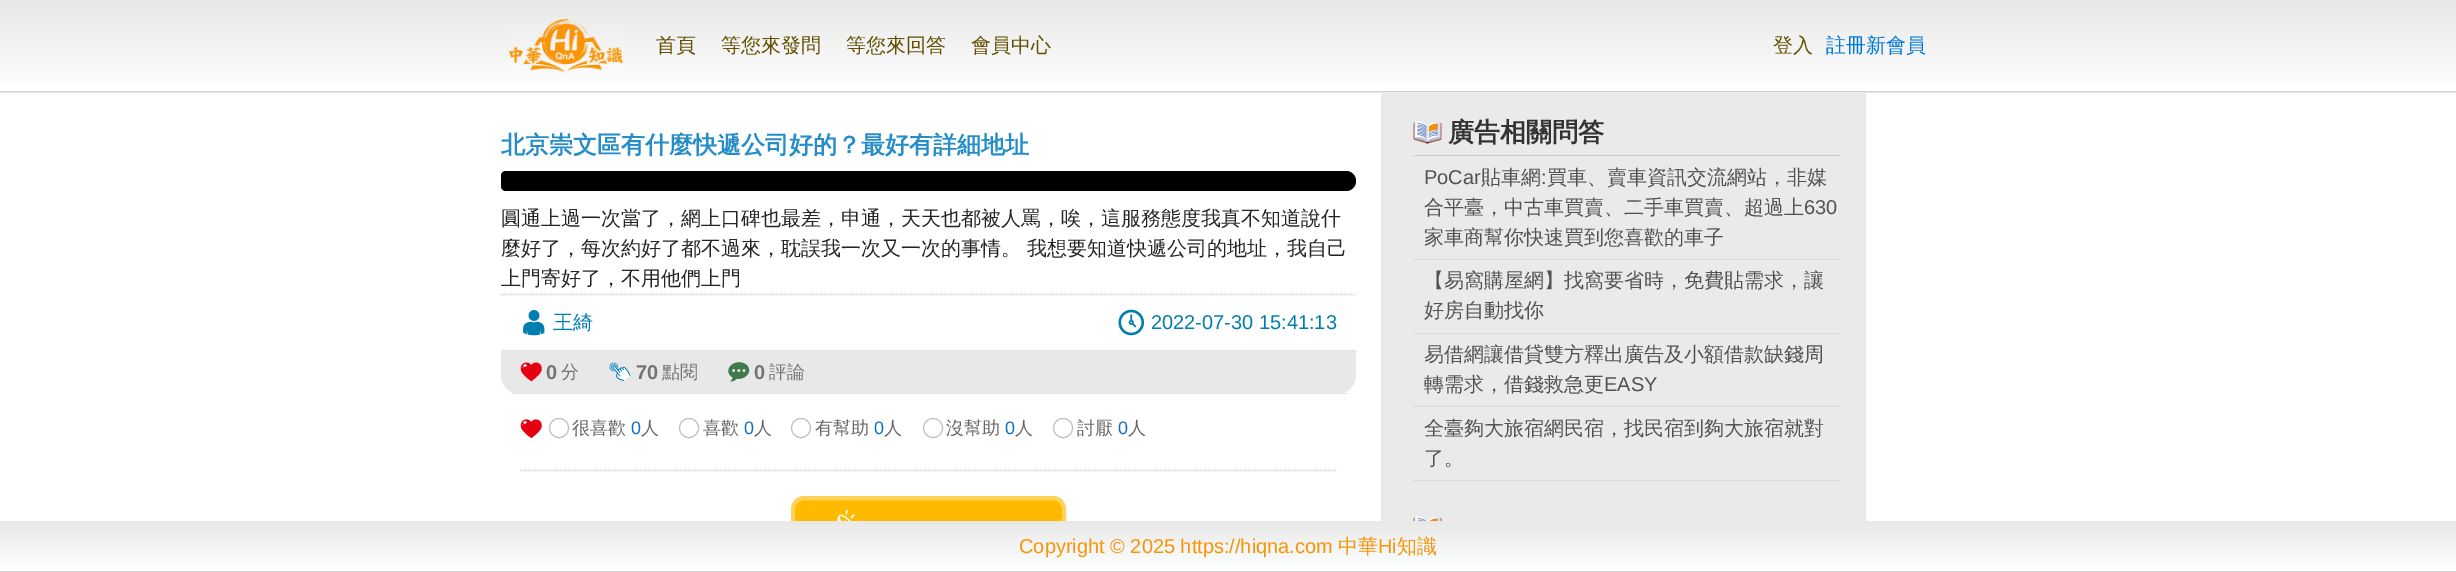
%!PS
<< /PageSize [2456 572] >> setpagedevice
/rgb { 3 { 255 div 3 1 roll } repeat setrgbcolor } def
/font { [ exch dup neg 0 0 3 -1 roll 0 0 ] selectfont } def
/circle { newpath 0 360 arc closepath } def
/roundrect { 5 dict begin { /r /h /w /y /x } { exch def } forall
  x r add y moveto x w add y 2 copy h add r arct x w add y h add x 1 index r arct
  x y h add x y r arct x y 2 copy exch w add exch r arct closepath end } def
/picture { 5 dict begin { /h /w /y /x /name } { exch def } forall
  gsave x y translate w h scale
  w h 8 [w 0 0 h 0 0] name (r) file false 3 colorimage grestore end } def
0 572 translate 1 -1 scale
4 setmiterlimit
255 255 255 rgb
0 0 2456 572 rectfill
gsave 0 0 moveto 2456 0 lineto 2456 85 lineto 0 85 lineto closepath clip newpath
<< /ShadingType 2 /ColorSpace /DeviceRGB /Coords [1228 0 1228 91] /Extend [true true] /Function << /FunctionType 2 /Domain [0 1] /C0 [0.91 0.91 0.91] /C1 [0.996 1 1] /N 1 >> >> shfill grestore
gsave 0 92 moveto 2456 92 lineto 2456 93 lineto 0 93 lineto closepath clip newpath
<< /ShadingType 2 /ColorSpace /DeviceRGB /Coords [1228 91 1228 183] /Extend [true true] /Function << /FunctionType 2 /Domain [0 1] /C0 [0.91 0.91 0.91] /C1 [0.996 1 1] /N 1 >> >> shfill grestore
209 209 209 rgb
0 91 2456 1 rectfill
(img/1.rgb) 508 19 116 54 picture
0 0 0 rgb
506 171 moveto 1346 171 lineto 1351.5 171 1356 175.5 1356 181 curveto 1356 186.5 1351.5 191 1346 191 curveto 506 191 lineto 503 191 501 189 501 186 curveto 501 176 lineto 501 173 503 171 506 171 curveto closepath fill
204 204 204 rgb
1.2 setlinewidth
[1.25 1.25] 0 setdash
501 294.5 moveto 1356 294.5 lineto stroke
(img/2.rgb) 523 310 22 26 picture
(img/3.rgb) 1118 309 27 27 picture
232 232 232 rgb
501 350 moveto 1356 350 lineto 1356 375 lineto 1356 385.5 1347.5 394 1337 394 curveto 520 394 lineto 509.5 394 501 385.5 501 375 curveto closepath fill
225 225 225 rgb
501 350 855 1 rectfill
511 393 837 1 rectfill
(img/4.rgb) 520 362 22 20 picture
(img/5.rgb) 609 362 22 19 picture
(img/6.rgb) 728 362 22 20 picture
(img/7.rgb) 520 419 22 20 picture
191 191 191 rgb
1 setlinewidth
[] 0 setdash
559 428 9.5 circle stroke
689 428 9.5 circle stroke
801 428 9.5 circle stroke
933 428 9.5 circle stroke
1063 428 9.5 circle stroke
204 204 204 rgb
1.2 setlinewidth
[1.25 1.25] 0 setdash
520 470.5 moveto 1337.5 470.5 lineto stroke
255 186 0 rgb
793 498 271 54 11 roundrect gsave fill grestore
255 210 89 rgb
4 setlinewidth
[] 0 setdash
stroke
(img/8.rgb) 837 509 22 12 picture
234 234 234 rgb
1381 93 485 428 rectfill
204 204 204 rgb
1413 155 428 1 rectfill
(img/9.rgb) 1413 121 29 23 picture
[
  [1413 259 428 1 218 218 218]
  [1413 333 428 1 218 218 218]
  [1413 406 428 1 218 218 218]
  [1413 480 428 1 218 218 218]
] { aload pop rgb rectfill } forall
(img/10.rgb) 1413 516 29 5 picture
gsave 0 521 moveto 2456 521 lineto 2456 568 lineto 0 568 lineto closepath clip newpath
<< /ShadingType 2 /ColorSpace /DeviceRGB /Coords [1228 521 1228 571] /Extend [true true] /Function << /FunctionType 2 /Domain [0 1] /C0 [0.91 0.91 0.91] /C1 [0.996 1 1] /N 1 >> >> shfill grestore
209 209 209 rgb
0 571 2456 1 rectfill
/WenQuanYiZenHei-Medium 20 font
98 79 0 rgb
[
  [(首頁) 656 52]
  [(等您來發問) 721 52]
  [(等您來回答) 846 52]
  [(會員中心) 971 52]
  [(登入) 1773 52]
] { aload pop moveto show } forall
0 121 215 rgb
1826 52 moveto (註冊新會員) show
/WenQuanYiZenHei-Bold 24 font
37 141 200 rgb
501 153 moveto (北京崇文區有什麼快遞公司好的？最好有詳細地址) show
/WenQuanYiZenHei-Medium 20 font
33 37 41 rgb
[
  [(圓通上過一次當了，網上口碑也最差，申通，天天也都被人罵，唉，這服務態度我真不知道說什) 501 225]
  [(麼好了，每次約好了都不過來，耽誤我一次又一次的事情。 我想要知道快遞公司的地址，我自己) 501 255]
  [(上門寄好了，不用他們上門) 501 285]
] { aload pop moveto show } forall
0 125 177 rgb
553 329 moveto (王綺) show
/LiberationSans-Regular 20 font
1151 329 moveto (2022-07-30 15:41:13) show
/LiberationSans-Bold 20 font
116 116 116 rgb
546 379 moveto (0) show
/WenQuanYiZenHei-Medium 18 font
561 378 moveto (分) show
/LiberationSans-Bold 20 font
636 379 moveto (70) show
/WenQuanYiZenHei-Medium 18 font
662 378 moveto (點閱) show
/LiberationSans-Bold 20 font
754 379 moveto (0) show
/WenQuanYiZenHei-Medium 18 font
769 378 moveto (評論) show
102 102 102 rgb
572 434 moveto (很喜歡) show
/LiberationSans-Regular 18 font
14 112 194 rgb
631 434 moveto (0) show
/WenQuanYiZenHei-Medium 18 font
102 102 102 rgb
641 434 moveto (人) show
703 434 moveto (喜歡) show
/LiberationSans-Regular 18 font
14 112 194 rgb
744 434 moveto (0) show
/WenQuanYiZenHei-Medium 18 font
102 102 102 rgb
754 434 moveto (人) show
815 434 moveto (有幫助) show
/LiberationSans-Regular 18 font
14 112 194 rgb
874 434 moveto (0) show
/WenQuanYiZenHei-Medium 18 font
102 102 102 rgb
884 434 moveto (人) show
946 434 moveto (沒幫助) show
/LiberationSans-Regular 18 font
14 112 194 rgb
1005 434 moveto (0) show
/WenQuanYiZenHei-Medium 18 font
102 102 102 rgb
1015 434 moveto (人) show
1077 434 moveto (討厭) show
/LiberationSans-Regular 18 font
14 112 194 rgb
1118 434 moveto (0) show
/WenQuanYiZenHei-Medium 18 font
102 102 102 rgb
1128 434 moveto (人) show
/WenQuanYiZenHei-Bold 26 font
51 51 51 rgb
1448 141 moveto (廣告相關問答) show
/LiberationSans-Regular 20 font
82 82 82 rgb
1424 184 moveto (PoCar) show
/WenQuanYiZenHei-Medium 20 font
1481 184 moveto (貼車網) show
/LiberationSans-Regular 20 font
1541 184 moveto (:) show
/WenQuanYiZenHei-Medium 20 font
1547 184 moveto (買車、賣車資訊交流網站，非媒) show
1424 214 moveto (合平臺，中古車買賣、二手車買賣、超過上) show
/LiberationSans-Regular 20 font
1804 214 moveto (630) show
/WenQuanYiZenHei-Medium 20 font
[
  [(家車商幫你快速買到您喜歡的車子) 1424 244]
  [(【易窩購屋網】找窩要省時，免費貼需求，讓) 1424 287]
  [(好房自動找你) 1424 317]
  [(易借網讓借貸雙方釋出廣告及小額借款缺錢周) 1424 361]
  [(轉需求，借錢救急更) 1424 391]
] { aload pop moveto show } forall
/LiberationSans-Regular 20 font
1604 391 moveto (EASY) show
/WenQuanYiZenHei-Medium 20 font
1424 435 moveto (全臺夠大旅宿網民宿，找民宿到夠大旅宿就對) show
1424 465 moveto (了。) show
/LiberationSans-Regular 20 font
248 148 6 rgb
1019 553 moveto (Copyright © 2025 https://hiqna.com) show
/WenQuanYiZenHei-Medium 20 font
1338 553 moveto (中華) show
/LiberationSans-Regular 20 font
1378 553 moveto (Hi) show
/WenQuanYiZenHei-Medium 20 font
1397 553 moveto (知識) show
showpage
